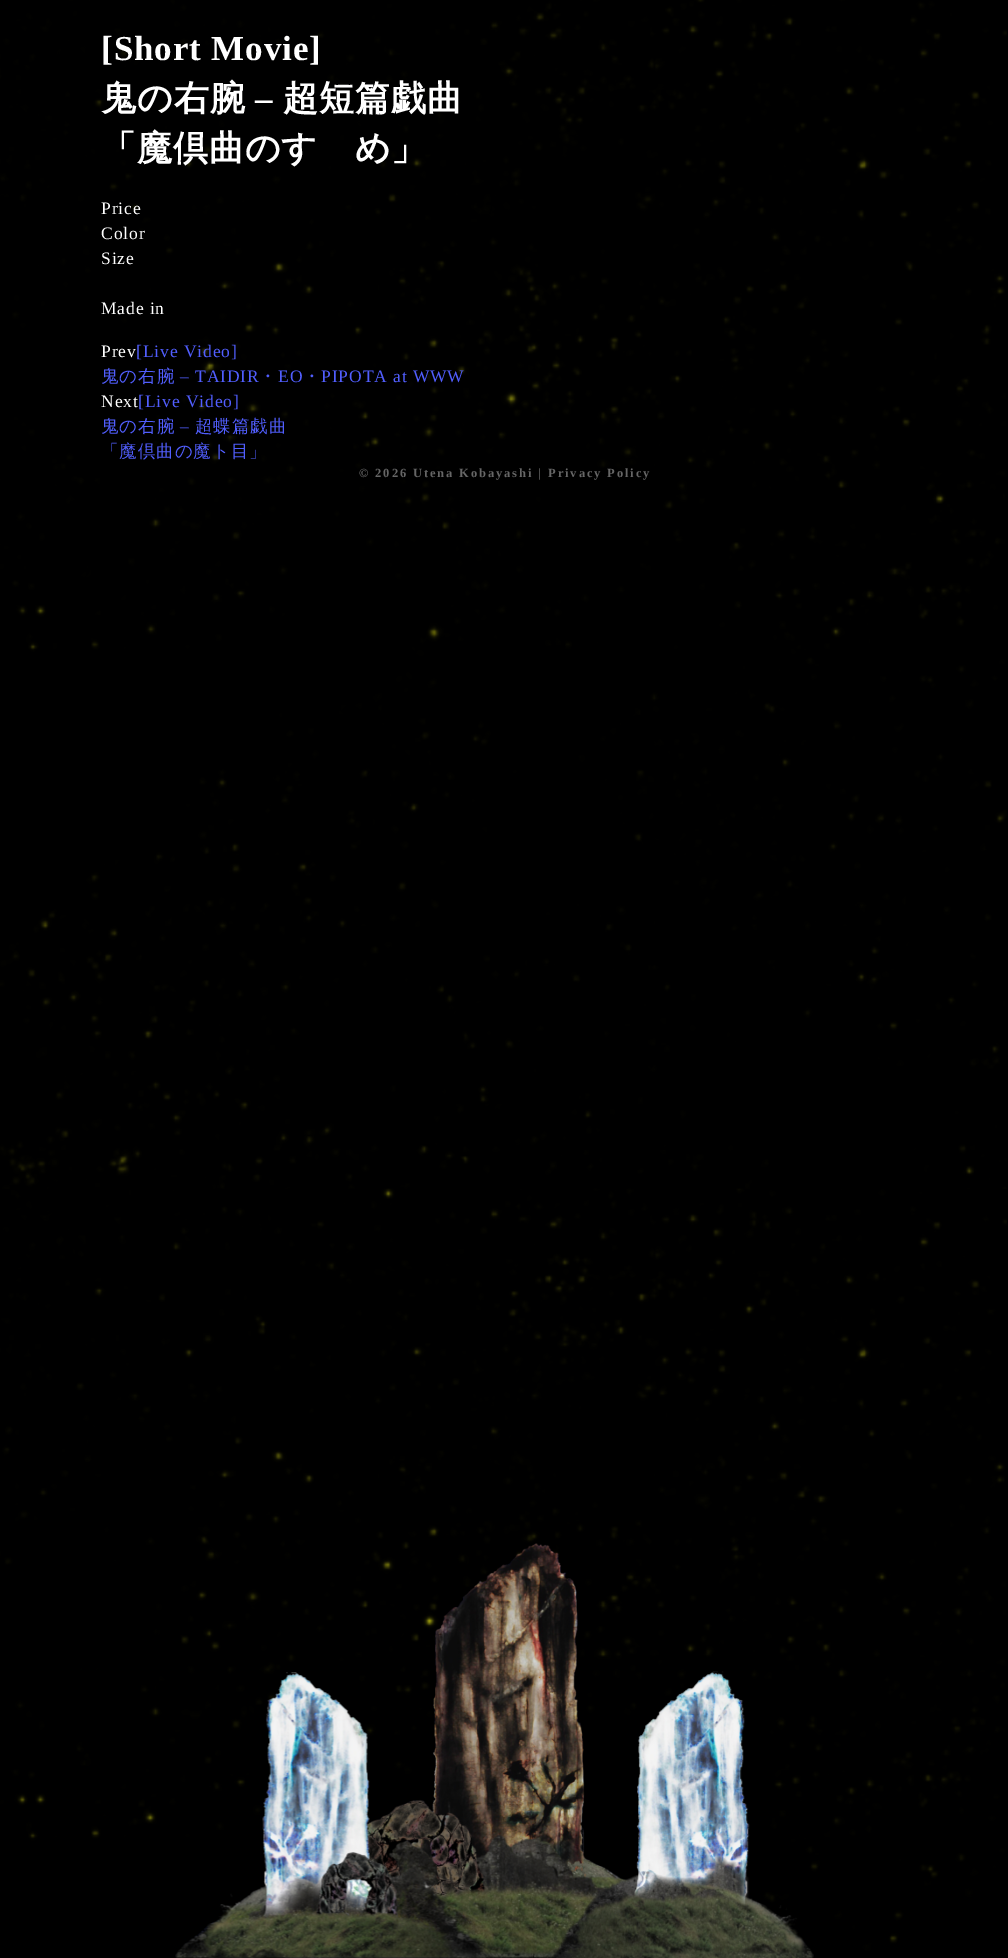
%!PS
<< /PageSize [1008 1958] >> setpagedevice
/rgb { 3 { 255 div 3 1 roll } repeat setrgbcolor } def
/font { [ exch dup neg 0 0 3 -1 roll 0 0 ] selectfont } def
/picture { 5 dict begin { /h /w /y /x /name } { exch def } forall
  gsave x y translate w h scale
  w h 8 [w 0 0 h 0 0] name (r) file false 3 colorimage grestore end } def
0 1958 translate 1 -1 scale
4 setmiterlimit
0 0 0 rgb
0 0 1008 1958 rectfill
(img/1.rgb) 0 0 1007 1947 picture
(img/2.rgb) 0 0 1003 1955 picture
(img/3.rgb) 287 1543 346 415 picture
(img/4.rgb) 543 1671 271 287 picture
(img/5.rgb) 175 1672 311 286 picture
/LiberationSerif-Bold 35 font
255 255 255 rgb
101 60 moveto 0.9 0 ([Short Movie]) ashow
/WenQuanYiZenHei-Bold 35 font
101 110 moveto 0.9 0 (鬼の右腕) ashow
/LiberationSerif-Bold 35 font
255 110 moveto 0.9 0 (–) ashow
/WenQuanYiZenHei-Bold 35 font
283 110 moveto 0.9 0 (超短篇戯曲) ashow
101 160 moveto 0.9 0 (「魔倶曲のすゝめ」) ashow
/LiberationSerif-Regular 17.5 font
101 214 moveto 0.9 0 (Price) ashow
101 239 moveto 0.9 0 (Color) ashow
101 264 moveto 0.9 0 (Size) ashow
101 314 moveto 0.9 0 (Made in) ashow
101 357 moveto 0.9 0 (Prev) ashow
81 94 254 rgb
136 357 moveto 0.9 0 ([Live Video]) ashow
/WenQuanYiZenHei-Medium 17.5 font
101 382 moveto 0.9 0 (鬼の右腕) ashow
/LiberationSerif-Regular 17.5 font
180 382 moveto 0.9 0 (– TAIDIR) ashow
/WenQuanYiZenHei-Medium 17.5 font
259 382 moveto 0.9 0 (・) ashow
/LiberationSerif-Regular 17.5 font
278 382 moveto 0.9 0 (EO) ashow
/WenQuanYiZenHei-Medium 17.5 font
303 382 moveto 0.9 0 (・) ashow
/LiberationSerif-Regular 17.5 font
321 382 moveto 0.9 0 (PIPOTA at WWW) ashow
255 255 255 rgb
101 407 moveto 0.9 0 (Next) ashow
81 94 254 rgb
138 407 moveto 0.9 0 ([Live Video]) ashow
/WenQuanYiZenHei-Medium 17.5 font
101 432 moveto 0.9 0 (鬼の右腕) ashow
/LiberationSerif-Regular 17.5 font
180 432 moveto 0.9 0 (–) ashow
/WenQuanYiZenHei-Medium 17.5 font
195 432 moveto 0.9 0 (超蝶篇戯曲) ashow
101 457 moveto 0.9 0 (「魔倶曲の魔ト目」) ashow
/LiberationSerif-Bold 12.5 font
102 102 102 rgb
359 477 moveto 1.9 0 (© 2026 Utena Kobayashi | Privacy Policy) ashow
showpage
